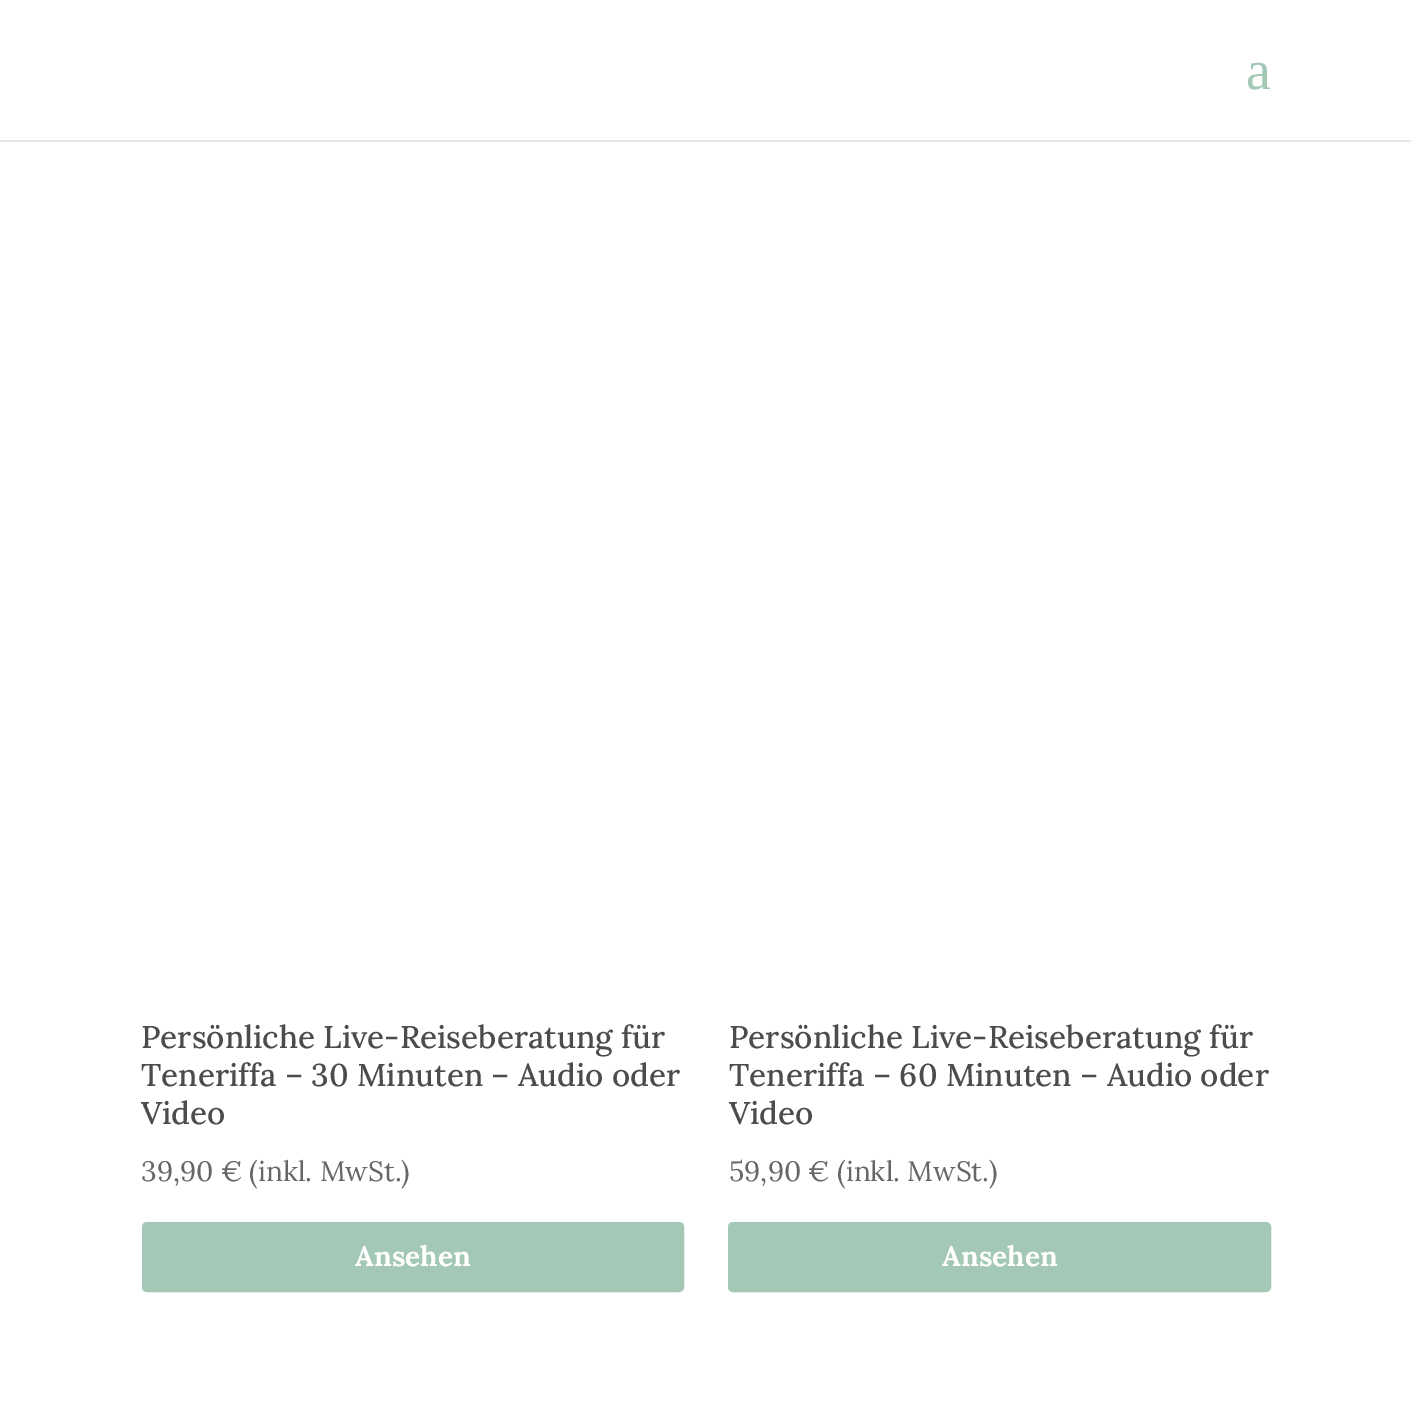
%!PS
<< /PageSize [1411 1406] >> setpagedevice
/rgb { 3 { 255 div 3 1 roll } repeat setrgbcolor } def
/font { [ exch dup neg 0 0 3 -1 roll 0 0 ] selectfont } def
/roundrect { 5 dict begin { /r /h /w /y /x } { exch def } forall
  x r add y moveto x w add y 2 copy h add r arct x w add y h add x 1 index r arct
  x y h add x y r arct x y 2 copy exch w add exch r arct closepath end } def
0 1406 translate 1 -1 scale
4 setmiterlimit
255 255 255 rgb
0 0 1411 1406 rectfill
230 230 230 rgb
0 140 1411 2 rectfill
163 200 181 rgb
144 1224 538 66 3 roundrect gsave fill grestore
4 setlinewidth
stroke
730 1224 539 66 3 roundrect gsave fill grestore
stroke
/LiberationSerif-Regular 56 font
1246 89 moveto (a) show
/Lora-Medium 31.5 font
76 76 76 rgb
[
  [(Persönliche Live-Reiseberatung für) 141 1048]
  [(Teneriffa – 30 Minuten – Audio oder) 141 1086]
  [(Video) 141 1124]
] { aload pop moveto show } forall
/Lora-Regular 28 font
102 102 102 rgb
141 1181 moveto (39,90 € \(inkl. MwSt.\)) show
/Lora-Bold 28 font
255 255 255 rgb
355 1266 moveto (Ansehen) show
/Lora-Medium 31.5 font
76 76 76 rgb
[
  [(Persönliche Live-Reiseberatung für) 729 1048]
  [(Teneriffa – 60 Minuten – Audio oder) 729 1086]
  [(Video) 729 1124]
] { aload pop moveto show } forall
/Lora-Regular 28 font
102 102 102 rgb
729 1181 moveto (59,90 € \(inkl. MwSt.\)) show
/Lora-Bold 28 font
255 255 255 rgb
942 1266 moveto (Ansehen) show
showpage
